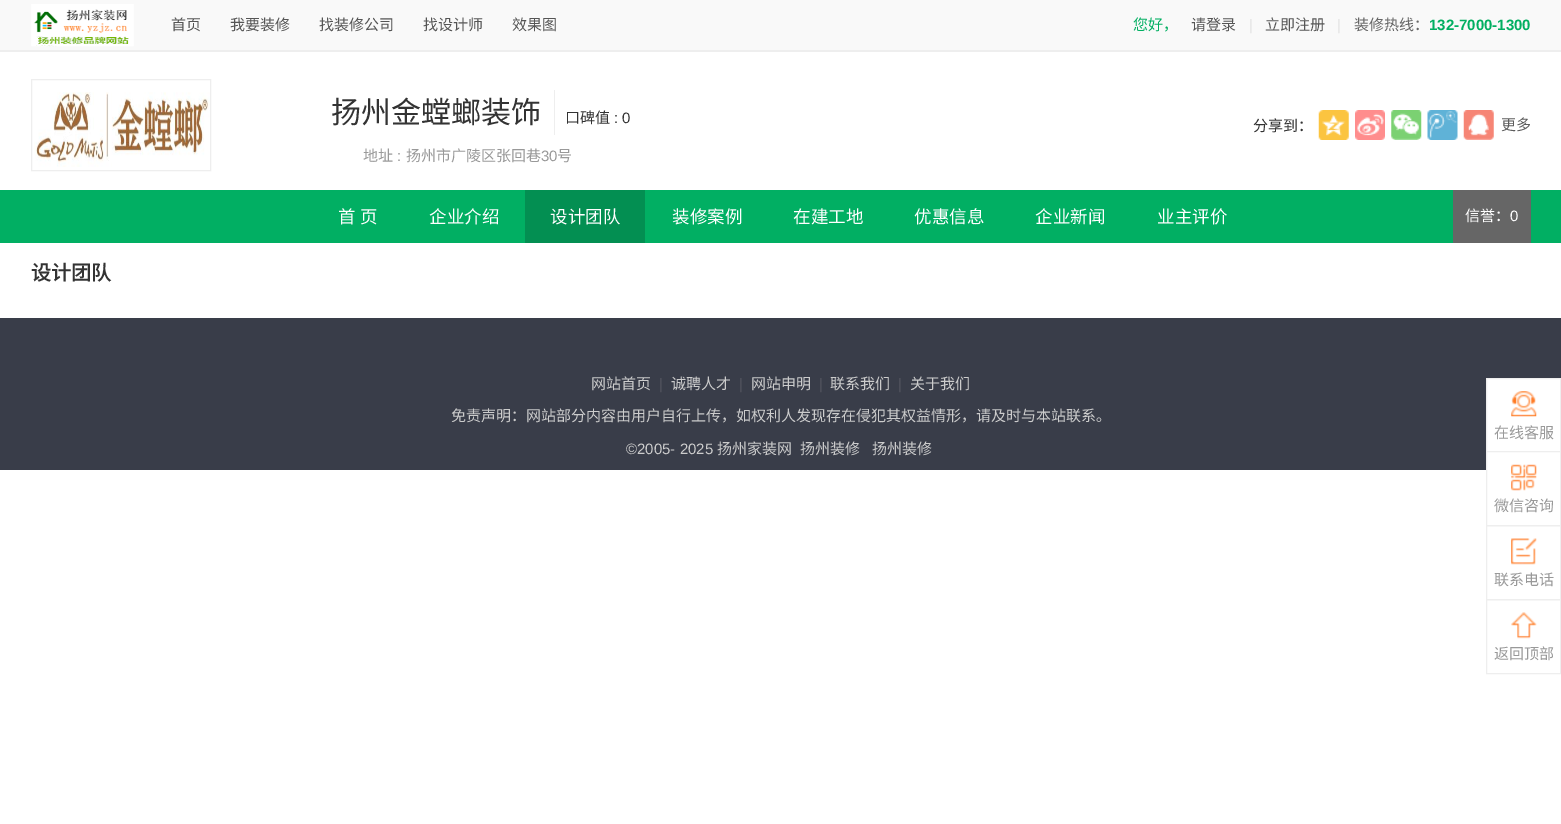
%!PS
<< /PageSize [1561 824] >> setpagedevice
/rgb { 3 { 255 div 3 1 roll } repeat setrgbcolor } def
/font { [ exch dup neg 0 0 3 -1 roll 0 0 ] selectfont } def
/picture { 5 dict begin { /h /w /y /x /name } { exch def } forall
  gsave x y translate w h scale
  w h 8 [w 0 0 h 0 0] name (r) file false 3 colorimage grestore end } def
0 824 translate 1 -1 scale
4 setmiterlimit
255 255 255 rgb
0 0 1561 824 rectfill
249 249 249 rgb
0 0 1561 50 rectfill
238 238 238 rgb
0 50 1561 2 rectfill
(img/1.rgb) 31 4 103 43 picture
31.5 79.5 179 91 rectstroke
(img/2.rgb) 34 92 176 75 picture
554 90 1 45 rectfill
(img/3.rgb) 1318 110 31 30 picture
(img/4.rgb) 1355 110 30 30 picture
(img/5.rgb) 1391 110 31 30 picture
(img/6.rgb) 1427 110 31 30 picture
(img/7.rgb) 1463 110 31 30 picture
[
  [0 190 1561 53 1 175 99]
  [525 190 120 53 3 143 82]
  [1453 190 78 53 102 102 102]
  [0 318 1561 152 57 61 73]
  [1487 379 73 72 255 255 255]
] { aload pop rgb rectfill } forall
238 238 238 rgb
1486.5 378.5 74 74 rectstroke
(img/8.rgb) 1511 391 26 26 picture
255 255 255 rgb
1487 452 73 18 rectfill
238 238 238 rgb
1486.5 451.5 74 74 rectstroke
(img/9.rgb) 1511 464 26 27 picture
1486.5 525.5 74 74 rectstroke
(img/10.rgb) 1511 538 26 27 picture
1486.5 599.5 74 74 rectstroke
(img/11.rgb) 1511 612 26 27 picture
/NotoSansCJKSC-Regular 15 font
85 85 85 rgb
[
  [(首页) 171 30]
  [(我要装修) 230 30]
  [(找装修公司) 319 30]
  [(找设计师) 423 30]
  [(效果图) 512 30]
] { aload pop moveto show } forall
0 175 97 rgb
1133 30 moveto (您好，) show
85 85 85 rgb
1191 30 moveto (请登录) show
/LiberationSans-Regular 15 font
228 228 228 rgb
1249 30 moveto (|) show
/NotoSansCJKSC-Regular 15 font
85 85 85 rgb
1265 30 moveto (立即注册) show
/LiberationSans-Regular 15 font
228 228 228 rgb
1337 30 moveto (|) show
/NotoSansCJKSC-Regular 15 font
102 102 102 rgb
1354 30 moveto (装修热线：) show
/LiberationSans-Bold 15 font
0 175 97 rgb
1429 30 moveto (132-7000-1300) show
/NotoSansCJKSC-Regular 30 font
51 51 51 rgb
331 123 moveto (扬州金螳螂装饰) show
/NotoSansCJKSC-Regular 15 font
565 123 moveto (口碑值) show
/LiberationSans-Regular 15 font
614 123 moveto (: 0) show
/NotoSansCJKSC-Regular 15 font
153 153 153 rgb
363 161 moveto (地址) show
/LiberationSans-Regular 15 font
397 161 moveto (:) show
/NotoSansCJKSC-Regular 15 font
406 161 moveto (扬州市广陵区张回巷) show
/LiberationSans-Regular 15 font
541 161 moveto (30) show
/NotoSansCJKSC-Regular 15 font
557 161 moveto (号) show
51 51 51 rgb
1253 131 moveto (分享到：) show
92 92 92 rgb
1501 130 moveto (更多) show
/NotoSansCJKSC-Regular 17.5 font
255 255 255 rgb
338 223 moveto 1 0 32 (首 页) widthshow
[
  [(企业介绍) 429 223]
  [(设计团队) 550 223]
  [(装修案例) 672 223]
  [(在建工地) 793 223]
  [(优惠信息) 914 223]
  [(企业新闻) 1035 223]
  [(业主评价) 1157 223]
] { aload pop moveto show } forall
/NotoSansCJKSC-Regular 15 font
1465 221 moveto (信誉：) show
/LiberationSans-Regular 15 font
1510 221 moveto (0) show
/NotoSansCJKSC-Bold 20 font
51 51 51 rgb
31 280 moveto (设计团队) show
/NotoSansCJKSC-Regular 15 font
204 204 204 rgb
591 389 moveto (网站首页) show
/LiberationSans-Regular 15 font
83 85 95 rgb
659 389 moveto (|) show
/NotoSansCJKSC-Regular 15 font
204 204 204 rgb
671 389 moveto (诚聘人才) show
/LiberationSans-Regular 15 font
83 85 95 rgb
739 389 moveto (|) show
/NotoSansCJKSC-Regular 15 font
204 204 204 rgb
751 389 moveto (网站申明) show
/LiberationSans-Regular 15 font
83 85 95 rgb
819 389 moveto (|) show
/NotoSansCJKSC-Regular 15 font
204 204 204 rgb
830 389 moveto (联系我们) show
/LiberationSans-Regular 15 font
83 85 95 rgb
898 389 moveto (|) show
/NotoSansCJKSC-Regular 15 font
204 204 204 rgb
910 389 moveto (关于我们) show
451 421 moveto (免责声明：网站部分内容由用户自行上传，如权利人发现存在侵犯其权益情形，请及时与本站联系。) show
/LiberationSans-Regular 15 font
626 454 moveto (©2005- 2025) show
/NotoSansCJKSC-Regular 15 font
[
  [(扬州家装网) 717 454]
  [(扬州装修) 800 454]
  [(扬州装修) 872 454]
] { aload pop moveto show } forall
153 153 153 rgb
[
  [(在线客服) 1494 438]
  [(微信咨询) 1494 511]
  [(联系电话) 1494 585]
  [(返回顶部) 1494 659]
] { aload pop moveto show } forall
showpage
